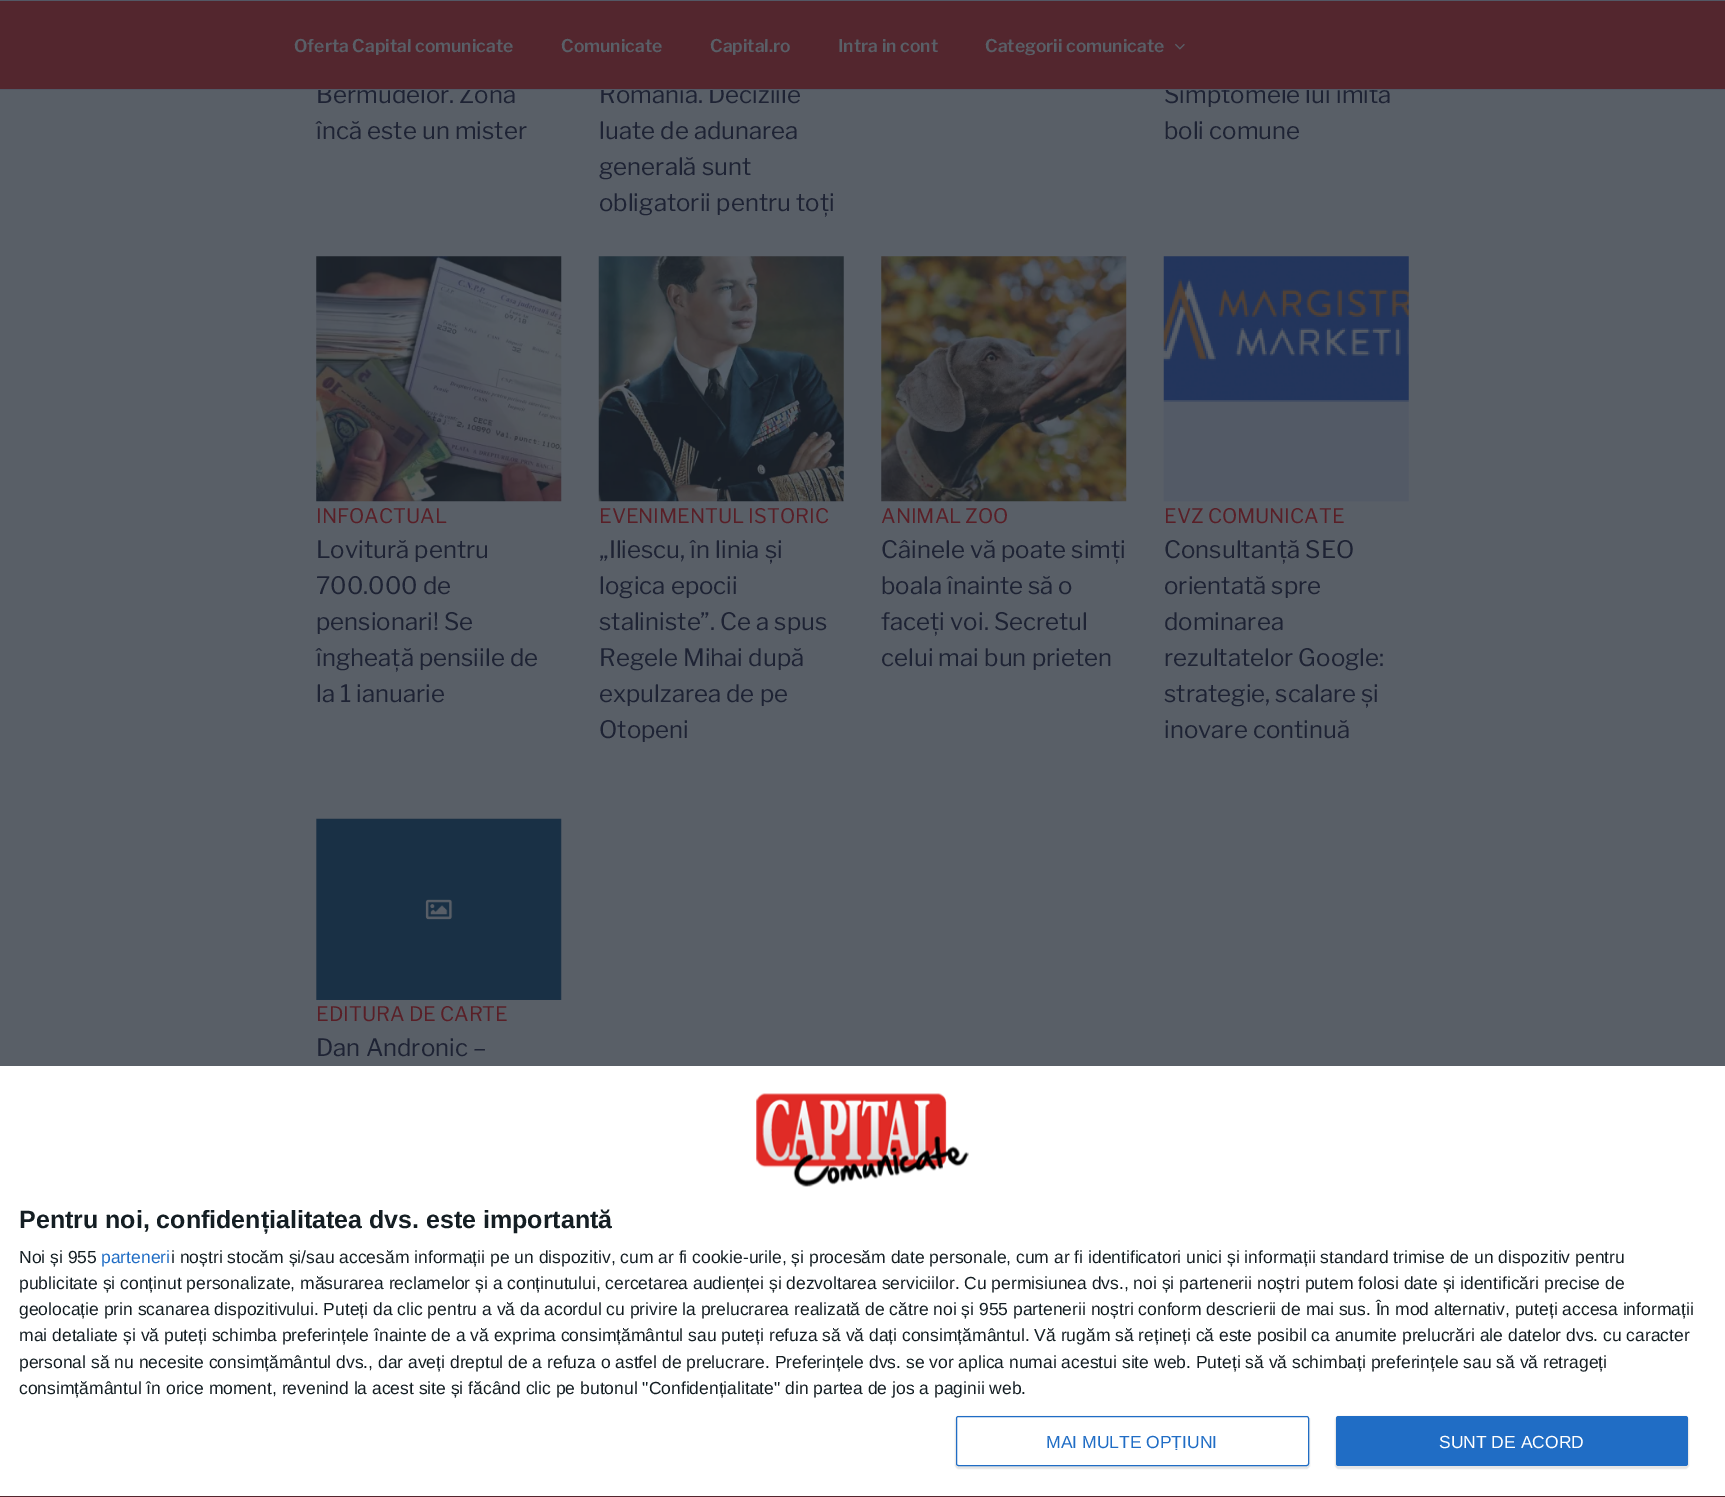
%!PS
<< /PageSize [1725 1497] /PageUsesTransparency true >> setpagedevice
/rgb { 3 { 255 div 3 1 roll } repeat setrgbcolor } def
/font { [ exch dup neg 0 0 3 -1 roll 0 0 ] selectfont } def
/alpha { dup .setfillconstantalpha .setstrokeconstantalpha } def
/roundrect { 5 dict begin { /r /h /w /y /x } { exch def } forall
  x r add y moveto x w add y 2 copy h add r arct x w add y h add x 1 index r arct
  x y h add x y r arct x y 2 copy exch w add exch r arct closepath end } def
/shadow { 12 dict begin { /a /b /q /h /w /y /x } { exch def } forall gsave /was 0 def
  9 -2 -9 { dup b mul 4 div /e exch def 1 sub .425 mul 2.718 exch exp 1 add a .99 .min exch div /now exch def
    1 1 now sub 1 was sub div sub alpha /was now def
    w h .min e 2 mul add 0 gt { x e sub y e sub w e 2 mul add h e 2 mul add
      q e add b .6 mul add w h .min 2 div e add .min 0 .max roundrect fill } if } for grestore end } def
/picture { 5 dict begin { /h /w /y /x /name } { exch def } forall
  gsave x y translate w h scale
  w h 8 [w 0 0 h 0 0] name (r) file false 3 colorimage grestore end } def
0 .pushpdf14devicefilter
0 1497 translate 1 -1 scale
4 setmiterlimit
89 95 103 rgb
0 0 1725 1497 rectfill
83 88 101 rgb
0 0 1725 1 rectfill
(img/2.rgb) 316 256 246 246 picture
(img/3.rgb) 598 256 246 246 picture
(img/4.rgb) 881 256 246 246 picture
(img/5.rgb) 1163 256 246 246 picture
(img/6.rgb) 316 818 246 182 picture
83 38 46 rgb
0 1496 1725 1 rectfill
255 255 255 rgb
0 1066 1725 430 rectfill
(img/7.rgb) 756 1093 213 94 picture
0 0 0 rgb
955 1416 355 53 4 0.5 0.1 shadow
255 255 255 rgb
956.5 1416.5 352 49 2 roundrect gsave fill grestore
32 109 197 rgb
stroke
0 0 0 rgb
1335 1416 354 53 4 0.5 0.1 shadow
32 109 197 rgb
1336 1416 352 50 2.5 roundrect fill
/LibreFranklin-Regular 24 font
30 35 52 rgb
[
  [(Bermudelor. Zona) 316 103]
  [(încă este un mister) 316 139]
  [(România. Deciziile) 599 103]
  [(luate de adunarea) 599 139]
  [(generală sunt) 599 175]
  [(obligatorii pentru toți) 599 211]
  [(Simptomele lui imită) 1164 103]
] { aload pop moveto show } forall
83 38 46 rgb
0 1 1725 88 rectfill
(img/1.rgb) 1175 43 10 7 picture
/LibreFranklin-SemiBold 17.5 font
89 95 103 rgb
[
  [(Categorii comunicate) 985 52]
  [(Intra in cont) 838 52]
  [(Capital.ro) 710 52]
  [(Comunicate) 561 52]
  [(Oferta Capital comunicate) 294 52]
] { aload pop moveto show } forall
83 88 101 rgb
0 89 1725 1 rectfill
/LibreFranklin-Regular 24 font
30 35 52 rgb
1164 139 moveto (boli comune) show
/LibreFranklin-Regular 20 font
89 31 39 rgb
316 523 moveto (INFOACTUAL) show
/LibreFranklin-Regular 24 font
30 35 52 rgb
[
  [(Lovitură pentru) 316 558]
  [(700.000 de) 316 594]
  [(pensionari! Se) 316 630]
  [(îngheață pensiile de) 316 666]
  [(la 1 ianuarie) 316 702]
] { aload pop moveto show } forall
/LibreFranklin-Regular 20 font
89 31 39 rgb
599 523 moveto (EVENIMENTUL ISTORIC) show
/LibreFranklin-Regular 24 font
30 35 52 rgb
[
  [(„Iliescu, în linia și) 599 558]
  [(logica epocii) 599 594]
  [(staliniste”. Ce a spus) 599 630]
  [(Regele Mihai după) 599 666]
  [(expulzarea de pe) 599 702]
  [(Otopeni) 599 738]
] { aload pop moveto show } forall
/LibreFranklin-Regular 20 font
89 31 39 rgb
881 523 moveto (ANIMAL ZOO) show
/LibreFranklin-Regular 24 font
30 35 52 rgb
[
  [(Câinele vă poate simți) 881 558]
  [(boala înainte să o) 881 594]
  [(faceți voi. Secretul) 881 630]
  [(celui mai bun prieten) 881 666]
] { aload pop moveto show } forall
/LibreFranklin-Regular 20 font
89 31 39 rgb
1164 523 moveto (EVZ COMUNICATE) show
/LibreFranklin-Regular 24 font
30 35 52 rgb
[
  [(Consultanță SEO) 1164 558]
  [(orientată spre) 1164 594]
  [(dominarea) 1164 630]
  [(rezultatelor Google:) 1164 666]
  [(strategie, scalare și) 1164 702]
  [(inovare continuă) 1164 738]
] { aload pop moveto show } forall
/LibreFranklin-Regular 20 font
89 31 39 rgb
316 1021 moveto (EDITURA DE CARTE) show
/LibreFranklin-Regular 24 font
30 35 52 rgb
316 1056 moveto (Dan Andronic –) show
/LiberationSans-Bold 25 font
20 30 35 rgb
19 1228 moveto (Pentru noi, confidențialitatea dvs. este importantă) show
/LiberationSans-Regular 17.5 font
19 1263 moveto (Noi și 955) show
32 109 197 rgb
101 1263 moveto (parteneri) show
20 30 35 rgb
[
  [(i noștri stocăm și/sau accesăm informații pe un dispozitiv, cum ar fi cookie-urile, și procesăm date personale, cum ar fi identificatori unici și informații standard trimise de un dispozitiv pentru) 171 1263]
  [(publicitate și conținut personalizate, măsurarea reclamelor și a conținutului, cercetarea audienței și dezvoltarea serviciilor. Cu permisiunea dvs., noi și partenerii noștri putem folosi date și identificări precise de) 19 1289]
  [(geolocație prin scanarea dispozitivului. Puteți da clic pentru a vă da acordul cu privire la prelucrarea realizată de către noi și 955 partenerii noștri conform descrierii de mai sus. În mod alternativ, puteți accesa informații) 19 1315]
  [(mai detaliate și vă puteți schimba preferințele înainte de a vă exprima consimțământul sau puteți refuza să vă dați consimțământul. Vă rugăm să rețineți că este posibil ca anumite prelucrări ale datelor dvs. cu caracter) 19 1341]
  [(personal să nu necesite consimțământul dvs., dar aveți dreptul de a refuza o astfel de prelucrare. Preferințele dvs. se vor aplica numai acestui site web. Puteți să vă schimbați preferințele sau să vă retrageți) 19 1368]
  [(consimțământul în orice moment, revenind la acest site și făcând clic pe butonul "Confidențialitate" din partea de jos a paginii web.) 19 1394]
] { aload pop moveto show } forall
gsave
1046 1433 172 17 rectclip
32 109 197 rgb
1046 1448 moveto (MAI MULTE OPȚIUNI) show
grestore
255 255 255 rgb
1439 1448 moveto (SUNT DE ACORD) show
.poppdf14devicefilter showpage
